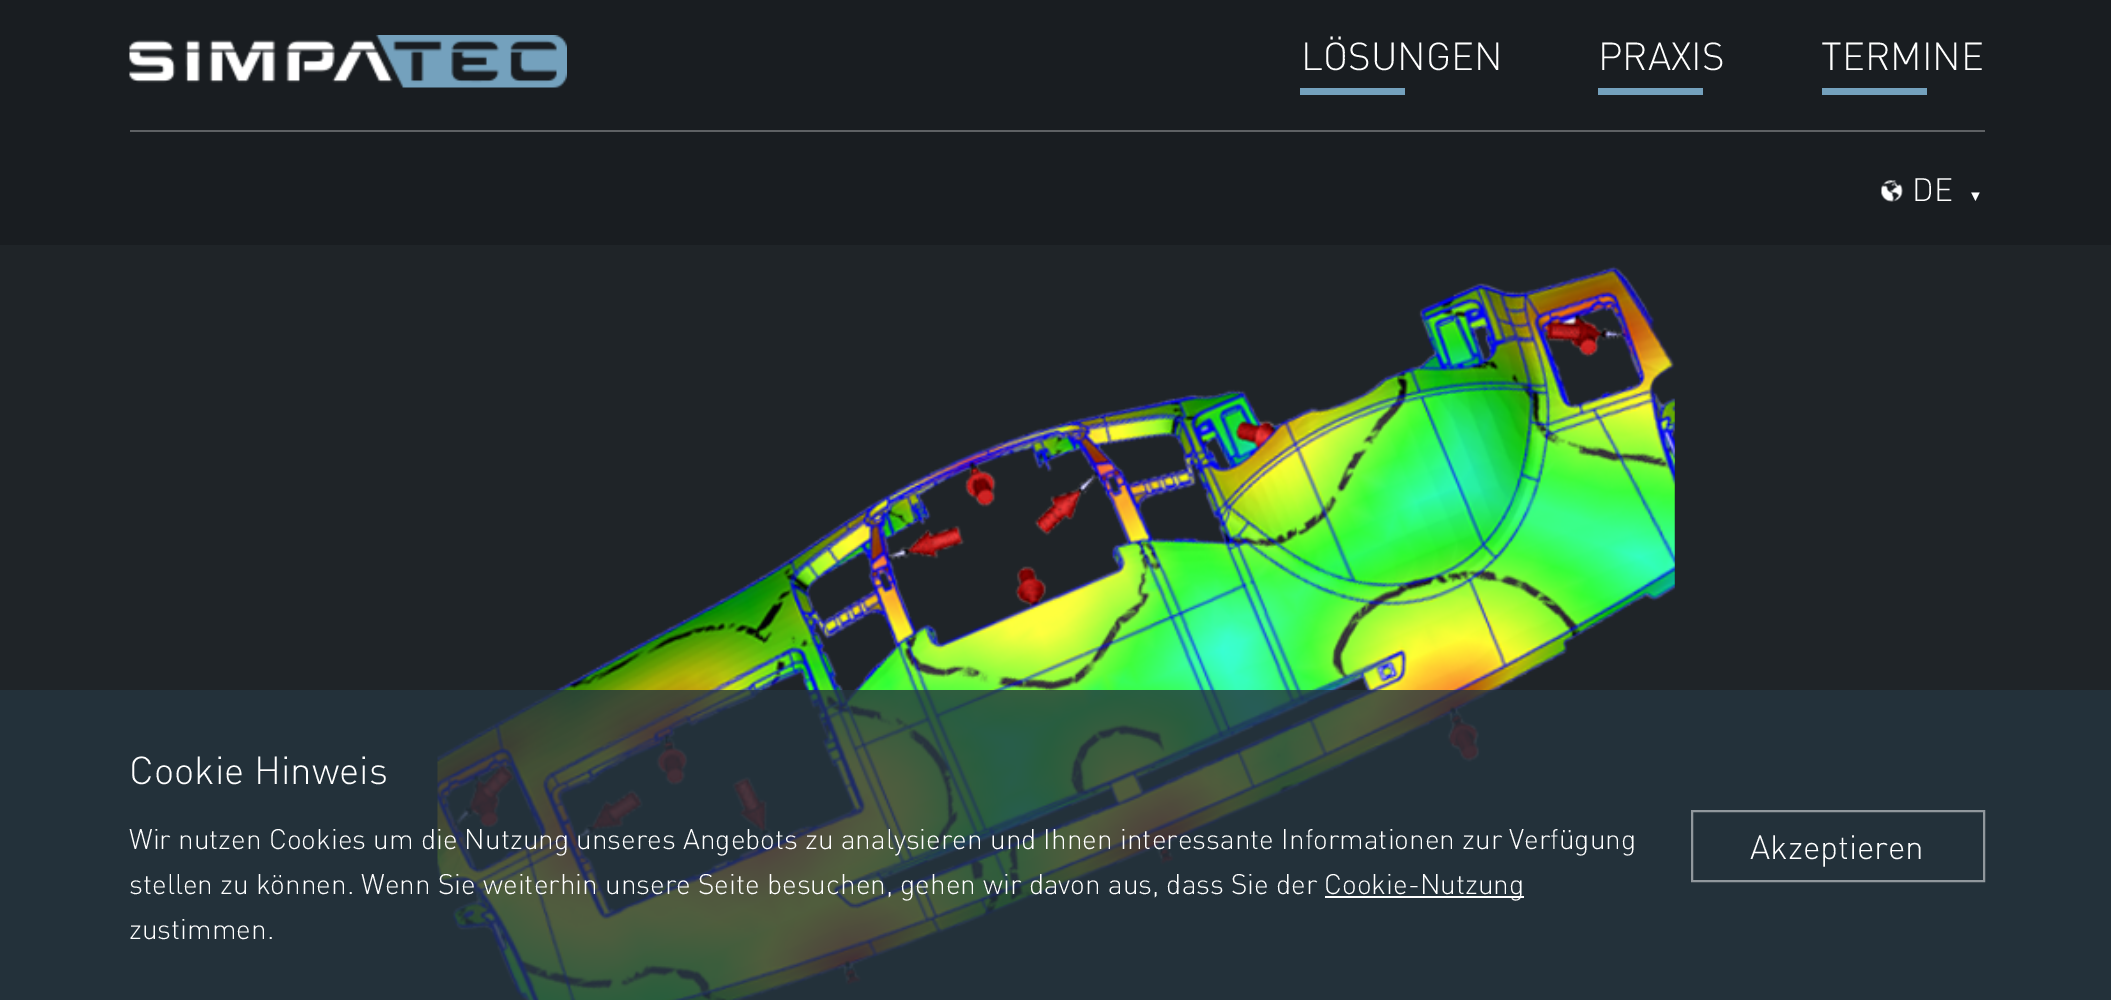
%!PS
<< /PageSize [2111 1000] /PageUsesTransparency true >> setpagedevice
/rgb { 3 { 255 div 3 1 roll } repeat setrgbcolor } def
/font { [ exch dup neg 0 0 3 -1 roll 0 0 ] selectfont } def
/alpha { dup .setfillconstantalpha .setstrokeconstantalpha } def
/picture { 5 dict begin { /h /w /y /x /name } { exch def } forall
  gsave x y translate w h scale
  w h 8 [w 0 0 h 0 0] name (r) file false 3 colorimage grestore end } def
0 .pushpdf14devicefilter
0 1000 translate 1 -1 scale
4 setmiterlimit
25 29 33 rgb
0 0 2111 1000 rectfill
(img/1.rgb) 129 35 438 53 picture
[
  [1300 88 105 7 116 161 189]
  [1598 88 105 7 116 161 189]
  [1822 88 105 7 116 161 189]
  [130 130 1855 2 94 97 100]
] { aload pop rgb rectfill } forall
(img/2.rgb) 1881 180 22 22 picture
31 36 40 rgb
0 245 2111 755 rectfill
(img/3.rgb) 437 266 1238 734 picture
0.8 alpha
36 52 63 rgb
0 690 2111 310 rectfill
1 alpha
255 255 255 rgb
1325 896 199 2 rectfill
145 152 157 rgb
2 setlinewidth
1692 811 292 70 rectstroke
/DIN-Light 38.5 font
255 255 255 rgb
[
  [(LÖSUNGEN) 1301 70]
  [(PRAXIS) 1598 70]
  [(TERMINE) 1821 70]
] { aload pop moveto show } forall
/DIN-Light 32 font
1912 201 moveto (DE) show
/LiberationSans-Regular 15 font
1968 201 moveto (▼) show
/DIN-Light 38.5 font
129 784 moveto (Cookie Hinweis) show
/DIN-Light 28 font
[
  [(Wir nutzen Cookies um die Nutzung unseres Angebots zu analysieren und Ihnen interessante Informationen zur Verfügung) 129 849]
  [(stellen zu können. Wenn Sie weiterhin unsere Seite besuchen, gehen wir davon aus, dass Sie der) 129 894]
  [(Cookie-Nutzung) 1324 894]
  [(zustimmen.) 129 939]
] { aload pop moveto show } forall
/DIN-Light 33.25 font
1750 859 moveto (Akzeptieren) show
.poppdf14devicefilter showpage
